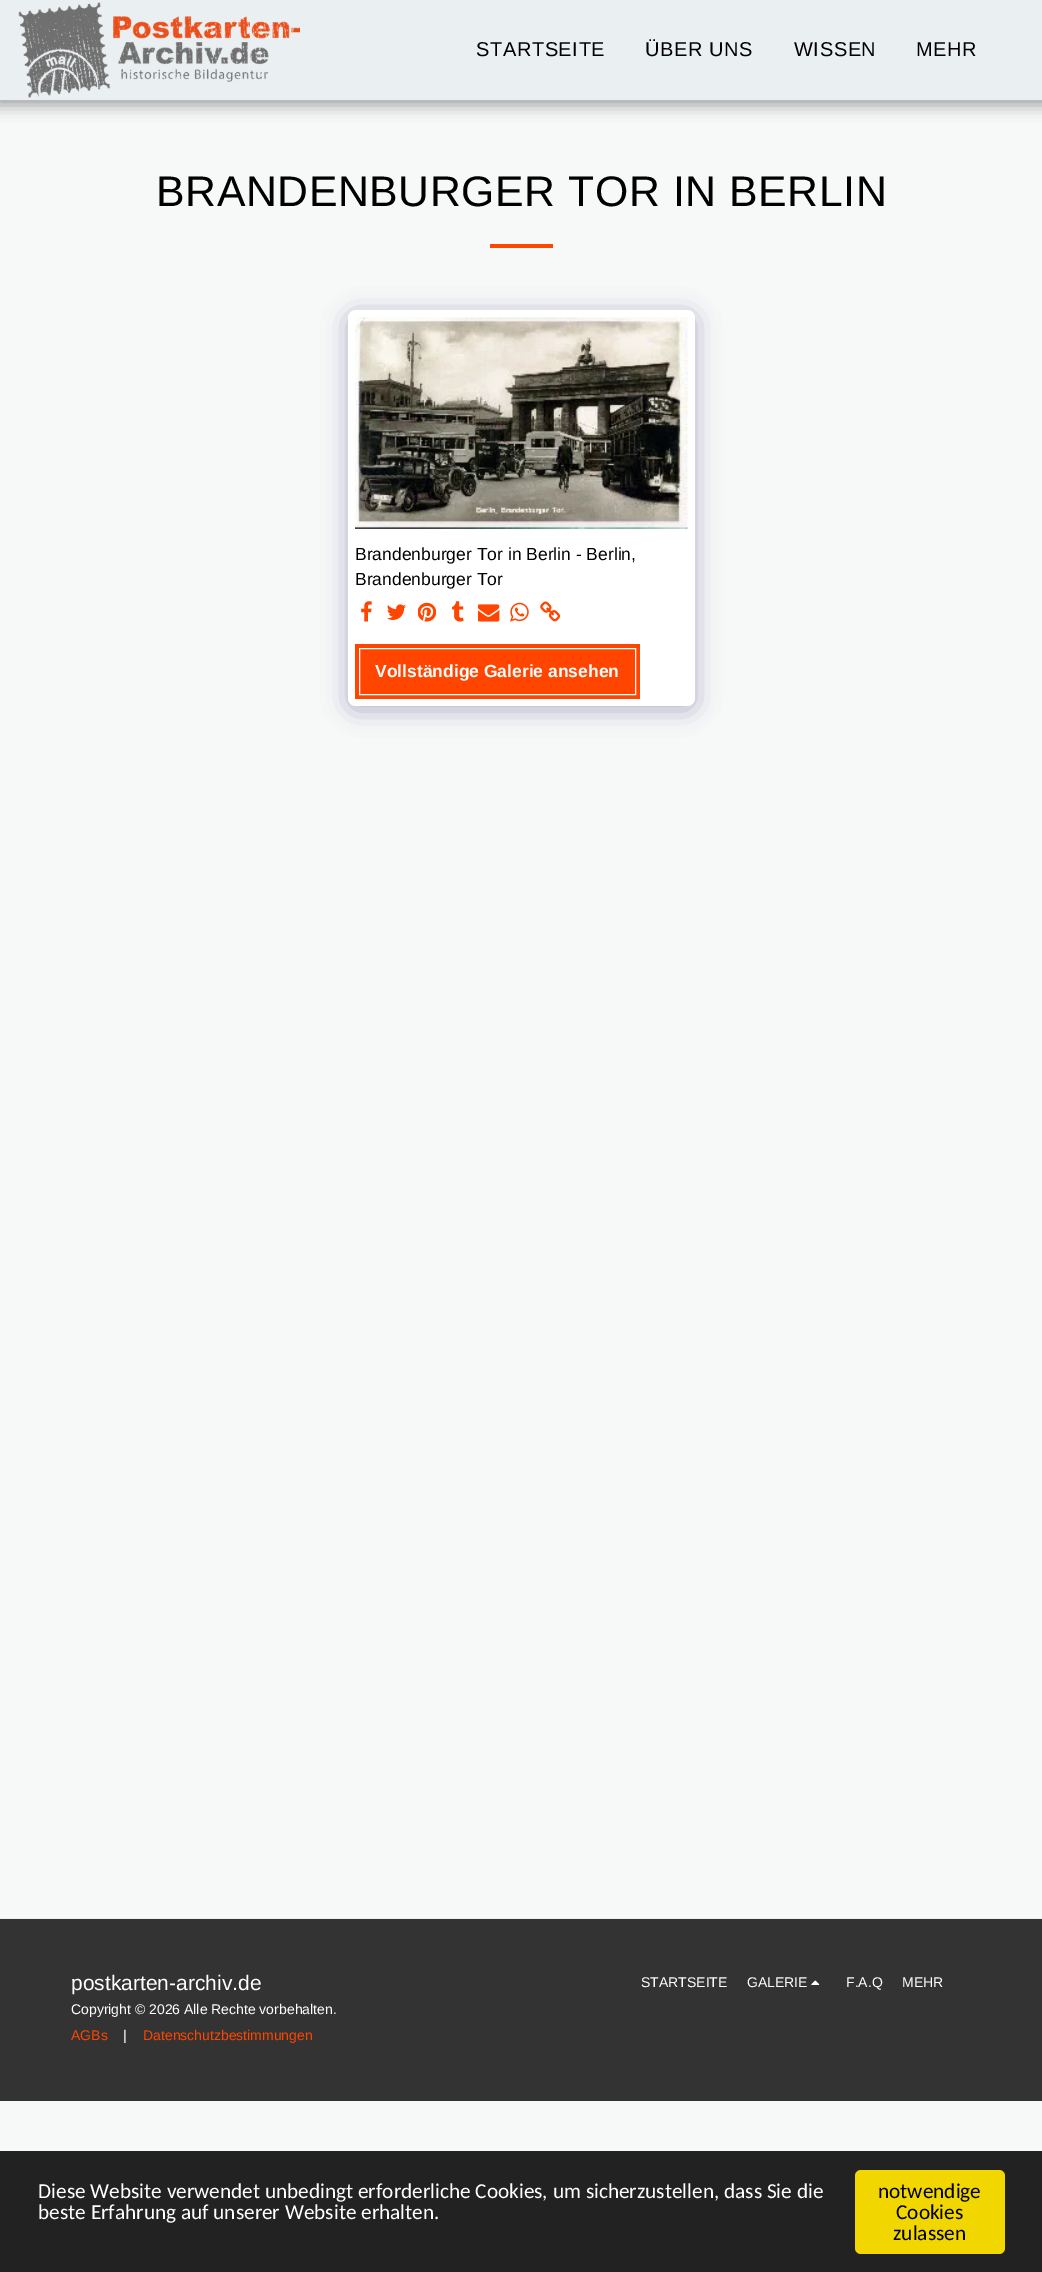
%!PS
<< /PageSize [1042 2272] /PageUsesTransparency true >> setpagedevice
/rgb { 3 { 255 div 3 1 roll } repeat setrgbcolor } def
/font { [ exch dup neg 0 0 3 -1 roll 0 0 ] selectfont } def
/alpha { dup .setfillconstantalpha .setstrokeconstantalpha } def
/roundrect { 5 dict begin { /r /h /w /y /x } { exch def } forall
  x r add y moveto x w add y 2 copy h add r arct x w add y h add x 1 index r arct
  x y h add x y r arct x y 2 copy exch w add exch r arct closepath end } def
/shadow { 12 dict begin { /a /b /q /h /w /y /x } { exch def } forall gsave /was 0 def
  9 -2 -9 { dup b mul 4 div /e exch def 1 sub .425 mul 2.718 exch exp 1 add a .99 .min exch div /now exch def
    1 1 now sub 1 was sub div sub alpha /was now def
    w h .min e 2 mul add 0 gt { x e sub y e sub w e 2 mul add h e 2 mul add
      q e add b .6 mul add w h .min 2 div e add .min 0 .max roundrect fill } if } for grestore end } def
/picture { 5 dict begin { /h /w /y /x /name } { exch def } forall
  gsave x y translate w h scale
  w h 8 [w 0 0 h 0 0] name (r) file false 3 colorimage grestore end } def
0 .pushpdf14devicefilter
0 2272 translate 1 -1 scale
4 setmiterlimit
247 249 248 rgb
0 0 1042 2272 rectfill
0 0 0 rgb
-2 0 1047 105 0 7.5 0.35 shadow
234 239 242 rgb
0 0 1042 100 rectfill
(img/1.rgb) 18 2 282 96 picture
255 69 0 rgb
490 244 63 4 rectfill
77 63 122 rgb
348 314 347 396 8 12.5 0.4 shadow
255 255 255 rgb
348 310 347 396 8 roundrect fill
(img/2.rgb) 355 317 333 212 picture
(img/3.rgb) 361 601 11 21 picture
(img/4.rgb) 387 604 19 16 picture
(img/5.rgb) 418 602 18 20 picture
(img/6.rgb) 452 601 12 21 picture
(img/7.rgb) 478 604 22 18 picture
(img/8.rgb) 510 602 19 20 picture
(img/9.rgb) 540 601 20 21 picture
255 69 0 rgb
355 644 285 55 rectfill
255 255 255 rgb
359.5 648.5 276 46 rectstroke
51 51 51 rgb
0 1919 1042 182 rectfill
234 239 242 rgb
0 1918 1042 1 rectfill
(img/10.rgb) 811 1980 9 5 picture
34 34 34 rgb
0 2151 1042 121 rectfill
241 214 0 rgb
855 2170 150 84 6 roundrect fill
/LiberationSans-Regular 20 font
0 0 0 rgb
476 56 moveto 0.6 0 (STARTSEITE) ashow
645 56 moveto 0.6 0 (ÜBER UNS) ashow
794 56 moveto 0.6 0 (WISSEN) ashow
916 56 moveto 0.6 0 (MEHR) ashow
/LiberationSans-Regular 42.75 font
156 206 moveto 0.6 0 (BRANDENBURGER TOR IN BERLIN) ashow
/LiberationSans-Regular 17.5 font
355 560 moveto (Brandenburger Tor in Berlin - Berlin,) show
355 585 moveto (Brandenburger Tor) show
/LiberationSans-Bold 17.5 font
255 255 255 rgb
375 677 moveto (Vollständige Galerie ansehen) show
/LiberationSans-Regular 21 font
71 1990 moveto (postkarten-archiv.de) show
/LiberationSans-Regular 14 font
71 2014 moveto (Copyright © 2026 Alle Rechte vorbehalten.) show
255 69 0 rgb
71 2040 moveto (AGBs) show
255 255 255 rgb
123 2040 moveto (|) show
255 69 0 rgb
143 2040 moveto (Datenschutzbestimmungen) show
255 255 255 rgb
[
  [(STARTSEITE) 641 1987]
  [(GALERIE) 747 1987]
  [(F.A.Q) 846 1987]
  [(MEHR) 902 1987]
] { aload pop moveto show } forall
/Carlito-Regular 21.25 font
38 2198 moveto (Diese Website verwendet unbedingt erforderliche Cookies, um sicherzustellen, dass Sie die) show
38 2219 moveto (beste Erfahrung auf unserer Website erhalten.) show
0 0 0 rgb
[
  [(notwendige) 878 2198]
  [(Cookies) 896 2219]
  [(zulassen) 893 2240]
] { aload pop moveto show } forall
.poppdf14devicefilter showpage
